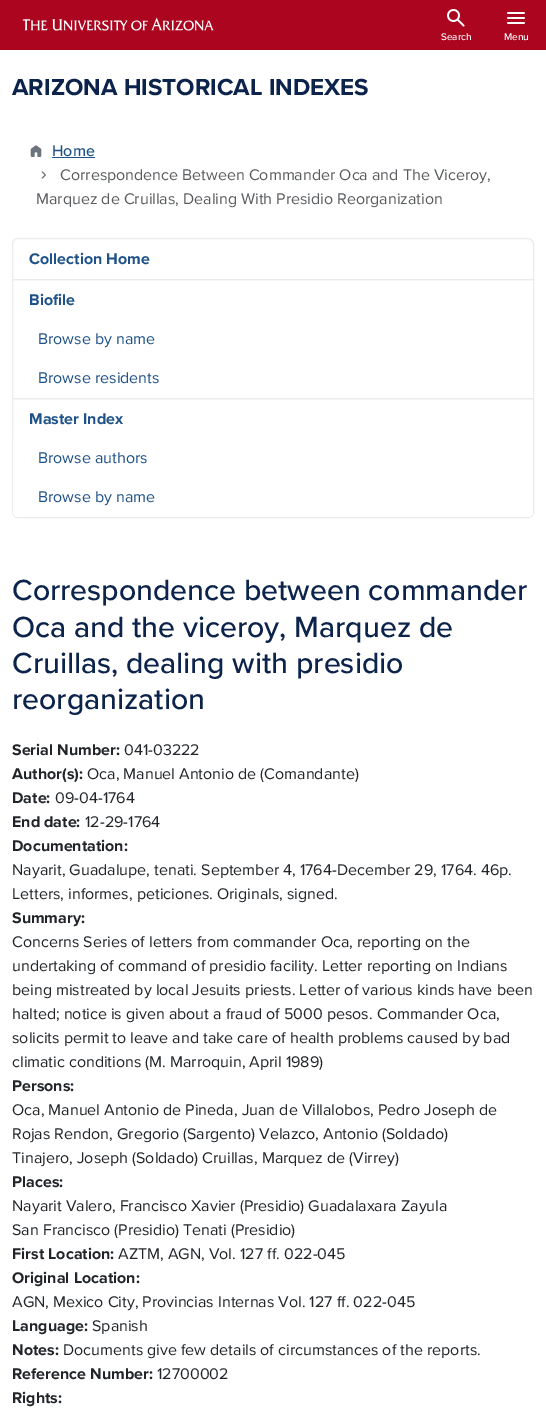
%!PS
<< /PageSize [546 1408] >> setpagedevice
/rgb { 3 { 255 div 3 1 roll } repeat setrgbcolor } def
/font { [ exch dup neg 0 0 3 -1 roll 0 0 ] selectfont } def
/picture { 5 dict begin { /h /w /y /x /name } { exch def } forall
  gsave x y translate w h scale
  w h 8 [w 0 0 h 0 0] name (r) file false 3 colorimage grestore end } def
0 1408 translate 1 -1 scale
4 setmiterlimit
255 255 255 rgb
0 0 546 1408 rectfill
171 5 32 rgb
0 0 546 50 rectfill
(img/1.rgb) 22 17 192 14 picture
(img/2.rgb) 447 9 18 18 picture
(img/3.rgb) 507 12 18 12 picture
(img/4.rgb) 30 145 12 12 picture
30 82 136 rgb
52 157 43 1 rectfill
(img/5.rgb) 41 171 5 8 picture
233 236 239 rgb
12.5 279.5 521 119 rectstroke
18 238.5 moveto 528 238.5 lineto 531 238.5 533.5 241 533.5 244 curveto 533.5 279.5 lineto 12.5 279.5 lineto 12.5 244 lineto 12.5 241 15 238.5 18 238.5 curveto closepath stroke
12.5 398.5 moveto 533.5 398.5 lineto 533.5 512 lineto 533.5 515 531 517.5 528 517.5 curveto 18 517.5 lineto 15 517.5 12.5 515 12.5 512 curveto closepath stroke
255 255 255 rgb
13 439 moveto 533 439 lineto 533 512 lineto 533 515 531 517 528 517 curveto 18 517 lineto 15 517 13 515 13 512 curveto closepath fill
/ProximaNova-Medium 10 font
441 40 moveto (Search) show
504 40 moveto (Menu) show
/ProximaNova-Bold 24.1 font
12 35 75 rgb
12 95 moveto (ARIZONA HISTORICAL INDEXES) show
/ProximaNova-Medium 16 font
30 82 136 rgb
52 156 moveto (Home) show
/ProximaNova-Regular 16 font
89 92 95 rgb
60 180 moveto (Correspondence Between Commander Oca and The Viceroy,) show
36 204 moveto (Marquez de Cruillas, Dealing With Presidio Reorganization) show
/ProximaNova-Bold 16 font
30 82 136 rgb
29 264 moveto (Collection Home) show
29 305 moveto (Biofile) show
/ProximaNova-Regular 16 font
38 344 moveto (Browse by name) show
38 383 moveto (Browse residents) show
/ProximaNova-Bold 16 font
29 424 moveto (Master Index) show
/ProximaNova-Regular 16 font
38 463 moveto (Browse authors) show
38 502 moveto (Browse by name) show
/ProximaNova-Medium 30.2 font
12 35 75 rgb
[
  [(Correspondence between commander) 12 600]
  [(Oca and the viceroy, Marquez de) 12 637]
  [(Cruillas, dealing with presidio) 12 673]
  [(reorganization) 12 709]
] { aload pop moveto show } forall
/ProximaNova-Bold 16 font
33 37 41 rgb
12 755 moveto (Serial Number:) show
/ProximaNova-Regular 16 font
124 755 moveto (041-03222) show
/ProximaNova-Bold 16 font
12 779 moveto (Author\(s\):) show
/ProximaNova-Regular 16 font
87 779 moveto (Oca, Manuel Antonio de \(Comandante\)) show
/ProximaNova-Bold 16 font
12 803 moveto (Date:) show
/ProximaNova-Regular 16 font
55 803 moveto (09-04-1764) show
/ProximaNova-Bold 16 font
12 827 moveto (End date:) show
/ProximaNova-Regular 16 font
85 827 moveto (12-29-1764) show
/ProximaNova-Bold 16 font
12 851 moveto (Documentation:) show
/ProximaNova-Regular 16 font
12 875 moveto (Nayarit, Guadalupe, tenati. September 4, 1764-December 29, 1764. 46p.) show
12 899 moveto (Letters, informes, peticiones. Originals, signed.) show
/ProximaNova-Bold 16 font
12 923 moveto (Summary:) show
/ProximaNova-Regular 16 font
[
  [(Concerns Series of letters from commander Oca, reporting on the) 12 947]
  [(undertaking of command of presidio facility. Letter reporting on Indians) 12 971]
  [(being mistreated by local Jesuits priests. Letter of various kinds have been) 12 995]
  [(halted; notice is given about a fraud of 5000 pesos. Commander Oca,) 12 1019]
  [(solicits permit to leave and take care of health problems caused by bad) 12 1043]
  [(climatic conditions \(M. Marroquin, April 1989\)) 12 1067]
] { aload pop moveto show } forall
/ProximaNova-Bold 16 font
12 1091 moveto (Persons:) show
/ProximaNova-Regular 16 font
[
  [(Oca, Manuel Antonio de Pineda, Juan de Villalobos, Pedro Joseph de) 12 1115]
  [(Rojas Rendon, Gregorio \(Sargento\) Velazco, Antonio \(Soldado\)) 12 1139]
  [(Tinajero, Joseph \(Soldado\) Cruillas, Marquez de \(Virrey\)) 12 1163]
] { aload pop moveto show } forall
/ProximaNova-Bold 16 font
12 1187 moveto (Places:) show
/ProximaNova-Regular 16 font
12 1211 moveto (Nayarit Valero, Francisco Xavier \(Presidio\) Guadalaxara Zayula) show
12 1235 moveto (San Francisco \(Presidio\) Tenati \(Presidio\)) show
/ProximaNova-Bold 16 font
12 1259 moveto (First Location:) show
/ProximaNova-Regular 16 font
118 1259 moveto (AZTM, AGN, Vol. 127 ff. 022-045) show
/ProximaNova-Bold 16 font
12 1283 moveto (Original Location:) show
/ProximaNova-Regular 16 font
12 1307 moveto (AGN, Mexico City, Provincias Internas Vol. 127 ff. 022-045) show
/ProximaNova-Bold 16 font
12 1331 moveto (Language:) show
/ProximaNova-Regular 16 font
92 1331 moveto (Spanish) show
/ProximaNova-Bold 16 font
12 1355 moveto (Notes:) show
/ProximaNova-Regular 16 font
63 1355 moveto (Documents give few details of circumstances of the reports.) show
/ProximaNova-Bold 16 font
12 1379 moveto (Reference Number:) show
/ProximaNova-Regular 16 font
157 1379 moveto (12700002) show
/ProximaNova-Bold 16 font
12 1403 moveto (Rights:) show
showpage
